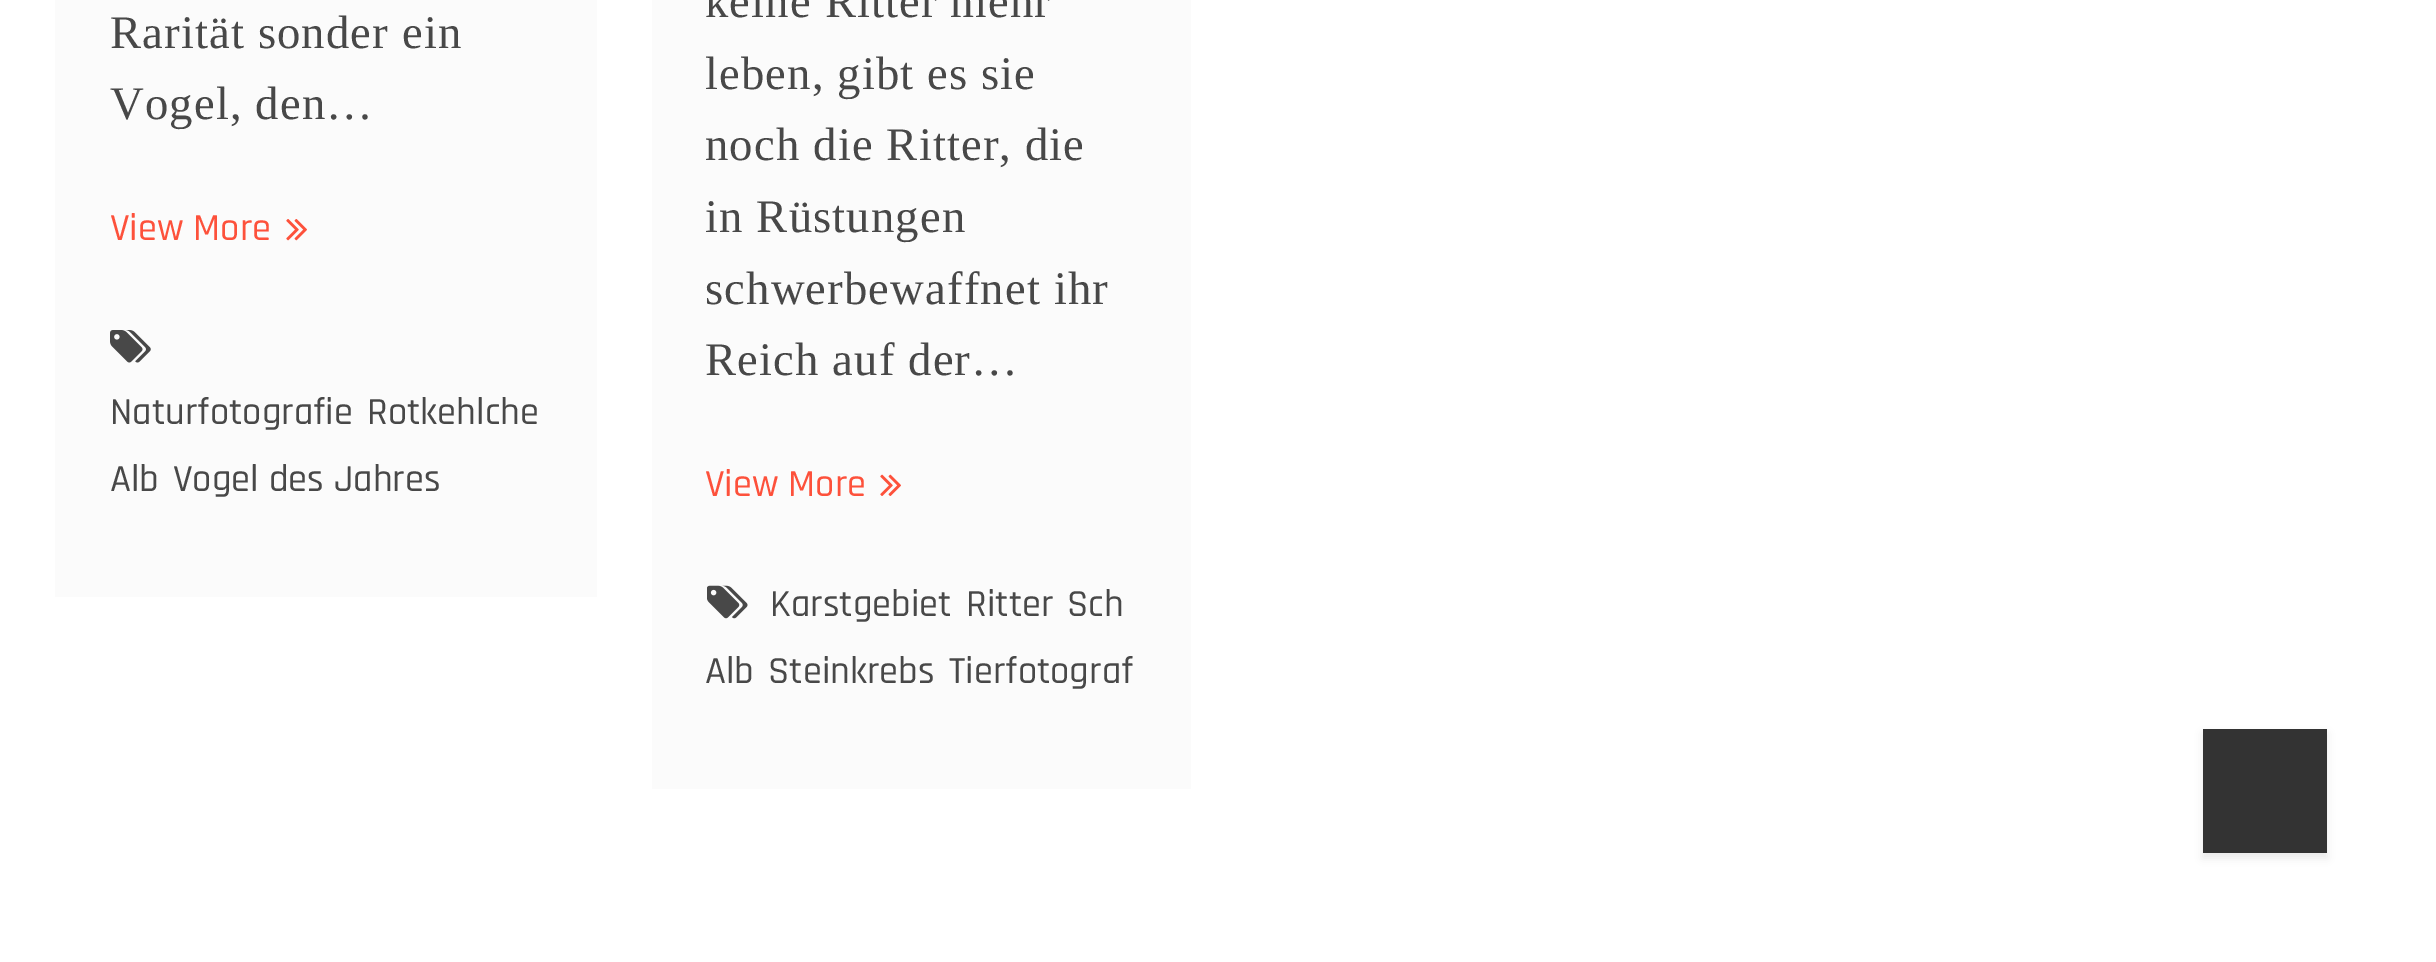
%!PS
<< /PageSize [2436 962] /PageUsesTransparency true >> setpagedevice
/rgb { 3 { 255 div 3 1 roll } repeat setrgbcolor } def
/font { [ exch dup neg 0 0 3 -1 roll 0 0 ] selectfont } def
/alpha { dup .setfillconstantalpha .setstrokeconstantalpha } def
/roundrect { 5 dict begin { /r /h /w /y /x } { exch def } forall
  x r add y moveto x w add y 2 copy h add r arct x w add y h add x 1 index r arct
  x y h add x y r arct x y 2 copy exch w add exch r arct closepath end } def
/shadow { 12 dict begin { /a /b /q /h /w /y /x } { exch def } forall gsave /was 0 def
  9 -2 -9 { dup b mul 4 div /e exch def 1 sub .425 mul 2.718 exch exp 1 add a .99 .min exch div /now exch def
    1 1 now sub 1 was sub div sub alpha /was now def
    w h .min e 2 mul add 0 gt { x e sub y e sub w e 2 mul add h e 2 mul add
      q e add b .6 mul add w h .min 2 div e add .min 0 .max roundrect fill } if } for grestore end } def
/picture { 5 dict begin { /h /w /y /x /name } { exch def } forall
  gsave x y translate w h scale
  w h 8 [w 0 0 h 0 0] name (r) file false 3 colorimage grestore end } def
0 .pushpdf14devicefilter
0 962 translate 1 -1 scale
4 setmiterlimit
255 255 255 rgb
0 0 2436 962 rectfill
251 251 251 rgb
55 0 542 597 rectfill
(img/1.rgb) 286 219 21 22 picture
(img/2.rgb) 110 330 41 33 picture
652 0 539 789 rectfill
(img/3.rgb) 880 474 21 22 picture
(img/4.rgb) 707 585 41 34 picture
0 0 0 rgb
2203 734 124 124 0 4 0.08 shadow
51 51 51 rgb
2203 729 124 124 rectfill
/LiberationSerif-Regular 46.75 font
72 72 72 rgb
110 48 moveto 1.1 0 (Rarität sonder ein) ashow
110 119 moveto 1.1 0 (Vogel, den…) ashow
/Rajdhani-Medium 38.5 font
253 81 59 rgb
110 240 moveto (View More) show
72 72 72 rgb
[
  [(Naturfotografie) 110 424]
  [(Rotkehlche) 367 424]
  [(Alb) 110 491]
  [(Vogel des Jahres) 173 491]
] { aload pop moveto show } forall
/LiberationSerif-Regular 46.75 font
705 17 moveto 1.1 0 (keine Ritter mehr) ashow
705 89 moveto 1.1 0 (leben, gibt es sie) ashow
705 160 moveto 1.1 0 (noch die Ritter, die) ashow
705 232 moveto 1.1 0 (in Rüstungen) ashow
705 304 moveto 1.1 0 (schwerbewaffnet ihr) ashow
705 375 moveto 1.1 0 (Reich auf der…) ashow
/Rajdhani-Medium 38.5 font
253 81 59 rgb
705 496 moveto (View More) show
72 72 72 rgb
[
  [(Karstgebiet) 770 616]
  [(Ritter) 966 616]
  [(Sch) 1067 616]
  [(Alb) 705 683]
  [(Steinkrebs) 768 683]
  [(Tierfotograf) 949 683]
] { aload pop moveto show } forall
.poppdf14devicefilter showpage
